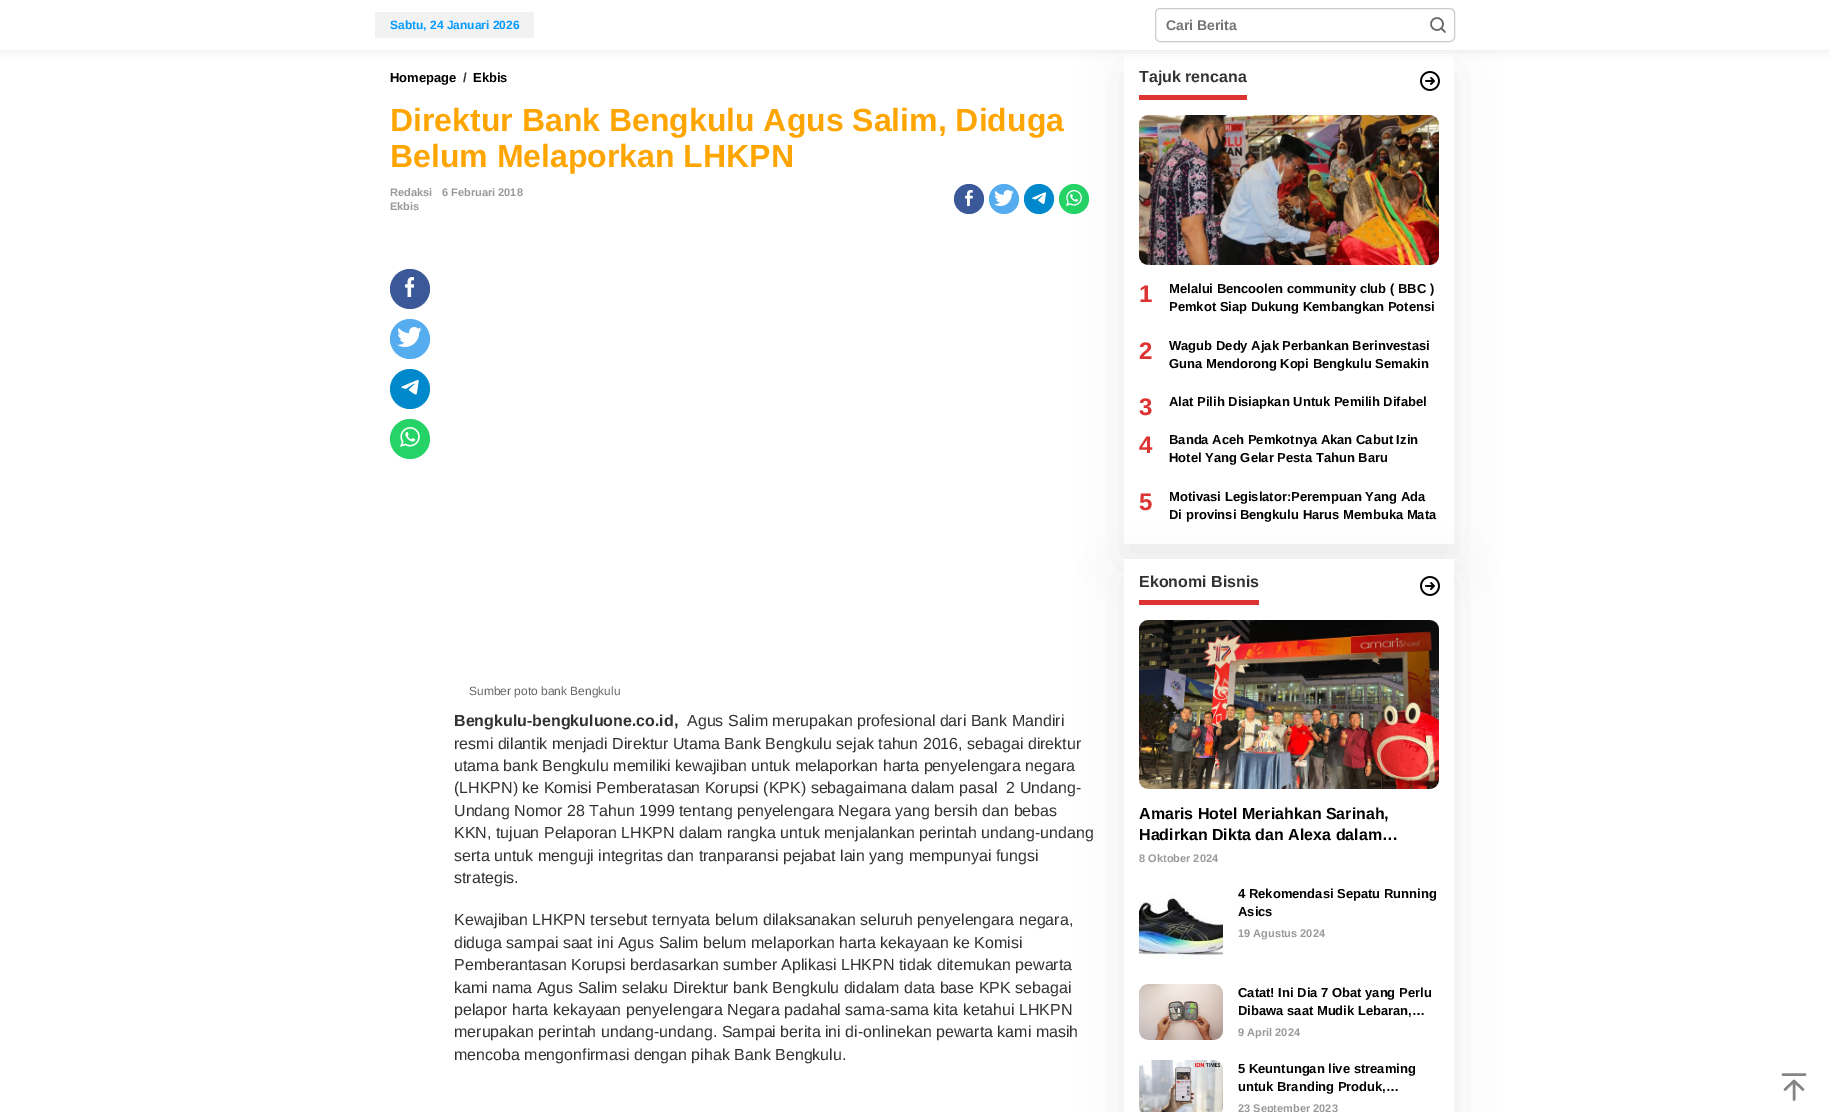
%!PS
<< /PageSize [1829 1112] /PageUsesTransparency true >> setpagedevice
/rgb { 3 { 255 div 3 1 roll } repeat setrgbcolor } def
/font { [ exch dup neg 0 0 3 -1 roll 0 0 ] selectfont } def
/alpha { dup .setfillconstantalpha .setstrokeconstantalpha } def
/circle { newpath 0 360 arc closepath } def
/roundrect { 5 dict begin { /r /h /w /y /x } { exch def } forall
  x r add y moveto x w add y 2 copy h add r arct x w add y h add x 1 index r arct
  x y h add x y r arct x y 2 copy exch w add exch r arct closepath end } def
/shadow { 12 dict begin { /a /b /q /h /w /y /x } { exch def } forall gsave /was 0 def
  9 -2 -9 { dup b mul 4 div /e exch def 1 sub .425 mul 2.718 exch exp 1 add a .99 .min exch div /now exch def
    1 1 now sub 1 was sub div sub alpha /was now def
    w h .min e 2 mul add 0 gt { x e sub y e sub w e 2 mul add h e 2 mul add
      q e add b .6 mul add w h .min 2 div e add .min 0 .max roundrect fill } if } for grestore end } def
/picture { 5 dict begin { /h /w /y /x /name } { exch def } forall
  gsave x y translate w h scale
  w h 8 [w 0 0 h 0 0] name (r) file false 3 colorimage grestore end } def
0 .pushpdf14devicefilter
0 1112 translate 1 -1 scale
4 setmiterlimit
255 255 255 rgb
0 0 1829 1112 rectfill
37 211 102 rgb
1074 199 15 circle fill
(img/4.rgb) 1066 190 16 16 picture
0 0 0 rgb
1124 70 330 490 0 22.5 0.07 shadow
255 255 255 rgb
1124 54 330 490 rectfill
0 0 0 rgb
0 0 1829 50 0 5 0.1 shadow
255 255 255 rgb
0 0 1829 50 rectfill
242 242 242 rgb
375 12 159 26 rectfill
204 204 204 rgb
1155.5 8.5 299 33 4.5 roundrect stroke
102 102 102 rgb
1.5 setlinewidth
1437 24 6 circle stroke
1 setlinecap
1 setlinejoin
1445 32 moveto 1441.5 28.5 lineto stroke
59 89 152 rgb
969 199 15 circle fill
(img/1.rgb) 965 190 8 16 picture
85 172 238 rgb
1004 199 15 circle fill
(img/2.rgb) 994 190 20 16 picture
0 136 204 rgb
1039 199 15 circle fill
(img/3.rgb) 1032 192 14 12 picture
59 89 152 rgb
410 289 20 circle fill
(img/5.rgb) 405 277 9 20 picture
85 172 238 rgb
410 339 20 circle fill
(img/6.rgb) 397 327 25 20 picture
0 136 204 rgb
410 389 20 circle fill
(img/7.rgb) 401 380 18 15 picture
37 211 102 rgb
410 439 20 circle fill
(img/8.rgb) 400 427 20 20 picture
221 51 51 rgb
1139 95 108 5 rectfill
(img/9.rgb) 1420 71 20 20 picture
(img/10.rgb) 1139 115 300 150 picture
0 0 0 rgb
1124 575 330 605 0 22.5 0.07 shadow
255 255 255 rgb
1124 559 330 553 rectfill
221 51 51 rgb
1139 600 120 5 rectfill
(img/9.rgb) 1420 576 20 20 picture
(img/11.rgb) 1139 620 300 169 picture
(img/12.rgb) 1139 894 84 66 picture
(img/13.rgb) 1139 984 84 56 picture
(img/14.rgb) 1139 1060 84 52 picture
132 132 133 rgb
2.5 setlinewidth
1794 1099.5 moveto 1794 1081 lineto 1785 1089.5 moveto 1794 1081 lineto 1803 1089.5 lineto 1783 1074.5 moveto 1805 1074.5 lineto stroke
/LiberationSans-Bold 12 font
0 153 255 rgb
390 29 moveto (Sabtu, 24 Januari 2026) show
/LiberationSans-Bold 14 font
117 117 117 rgb
1166 30 moveto (Cari Berita) show
/LiberationSans-Bold 13 font
0 0 0 rgb
390 82 moveto (Homepage) show
50 50 51 rgb
463 82 moveto (/) show
0 0 0 rgb
473 82 moveto (Ekbis) show
/LiberationSans-Bold 32 font
255 165 0 rgb
390 131 moveto (Direktur Bank Bengkulu Agus Salim, Diduga) show
390 167 moveto (Belum Melaporkan LHKPN) show
/LiberationSans-Bold 11 font
153 153 153 rgb
[
  [(Redaksi) 390 196]
  [(6 Februari 2018) 442 196]
  [(Ekbis) 390 210]
] { aload pop moveto show } forall
/LiberationSans-Regular 12 font
102 102 102 rgb
469 695 moveto (Sumber poto bank Bengkulu) show
/LiberationSans-Bold 16 font
50 50 51 rgb
454 726 moveto (Bengkulu-bengkuluone.co.id,) show
/LiberationSans-Regular 16 font
[
  [(Agus Salim merupakan profesional dari Bank Mandiri) 687 726]
  [(resmi dilantik menjadi Direktur Utama Bank Bengkulu sejak tahun 2016, sebagai direktur) 454 749]
  [(utama bank Bengkulu memiliki kewajiban untuk melaporkan harta penyelengara negara) 454 771]
  [(\(LHKPN\) ke Komisi Pemberatasan Korupsi \(KPK\) sebagaimana dalam pasal  2 Undang-) 454 793]
  [(Undang Nomor 28 Tahun 1999 tentang penyelengara Negara yang bersih dan bebas) 454 816]
  [(KKN, tujuan Pelaporan LHKPN dalam rangka untuk menjalankan perintah undang-undang) 454 838]
  [(serta untuk menguji integritas dan tranparansi pejabat lain yang mempunyai fungsi) 454 861]
  [(strategis.) 454 883]
  [(Kewajiban LHKPN tersebut ternyata belum dilaksanakan seluruh penyelengara negara,) 454 925]
  [(diduga sampai saat ini Agus Salim belum melaporkan harta kekayaan ke Komisi) 454 948]
  [(Pemberantasan Korupsi berdasarkan sumber Aplikasi LHKPN tidak ditemukan pewarta) 454 970]
  [(kami nama Agus Salim selaku Direktur bank Bengkulu didalam data base KPK sebagai) 454 993]
  [(pelapor harta kekayaan penyelengara Negara padahal sama-sama kita ketahui LHKPN) 454 1015]
  [(merupakan perintah undang-undang. Sampai berita ini di-onlinekan pewarta kami masih) 454 1037]
  [(mencoba mengonfirmasi dengan pihak Bank Bengkulu.) 454 1060]
] { aload pop moveto show } forall
/LiberationSans-Bold 16 font
1139 82 moveto (Tajuk rencana) show
/LiberationSans-Bold 24 font
221 51 51 rgb
1139 302 moveto (1) show
/LiberationSans-Bold 13 font
0 0 0 rgb
1169 293 moveto (Melalui Bencoolen community club \( BBC \)) show
1169 311 moveto (Pemkot Siap Dukung Kembangkan Potensi) show
/LiberationSans-Bold 24 font
221 51 51 rgb
1139 359 moveto (2) show
/LiberationSans-Bold 13 font
0 0 0 rgb
1169 350 moveto (Wagub Dedy Ajak Perbankan Berinvestasi) show
1169 368 moveto (Guna Mendorong Kopi Bengkulu Semakin) show
/LiberationSans-Bold 24 font
221 51 51 rgb
1139 415 moveto (3) show
/LiberationSans-Bold 13 font
0 0 0 rgb
1169 406 moveto (Alat Pilih Disiapkan Untuk Pemilih Difabel) show
/LiberationSans-Bold 24 font
221 51 51 rgb
1139 453 moveto (4) show
/LiberationSans-Bold 13 font
0 0 0 rgb
1169 444 moveto (Banda Aceh Pemkotnya Akan Cabut Izin) show
1169 462 moveto (Hotel Yang Gelar Pesta Tahun Baru) show
/LiberationSans-Bold 24 font
221 51 51 rgb
1139 510 moveto (5) show
/LiberationSans-Bold 13 font
0 0 0 rgb
1169 501 moveto (Motivasi Legislator:Perempuan Yang Ada) show
1169 519 moveto (Di provinsi Bengkulu Harus Membuka Mata) show
/LiberationSans-Bold 16 font
50 50 51 rgb
1139 587 moveto (Ekonomi Bisnis) show
0 0 0 rgb
1139 819 moveto (Amaris Hotel Meriahkan Sarinah,) show
1139 840 moveto (Hadirkan Dikta dan Alexa dalam…) show
/LiberationSans-Bold 11 font
153 153 153 rgb
1139 862 moveto (8 Oktober 2024) show
/LiberationSans-Bold 13 font
0 0 0 rgb
1238 898 moveto (4 Rekomendasi Sepatu Running) show
1238 916 moveto (Asics) show
/LiberationSans-Bold 11 font
153 153 153 rgb
1238 937 moveto (19 Agustus 2024) show
/LiberationSans-Bold 13 font
0 0 0 rgb
1238 997 moveto (Catat! Ini Dia 7 Obat yang Perlu) show
1238 1015 moveto (Dibawa saat Mudik Lebaran,…) show
/LiberationSans-Bold 11 font
153 153 153 rgb
1238 1036 moveto (9 April 2024) show
/LiberationSans-Bold 13 font
0 0 0 rgb
1238 1073 moveto (5 Keuntungan live streaming) show
1238 1091 moveto (untuk Branding Produk,…) show
/LiberationSans-Bold 11 font
153 153 153 rgb
1238 1112 moveto (23 September 2023) show
.poppdf14devicefilter showpage
